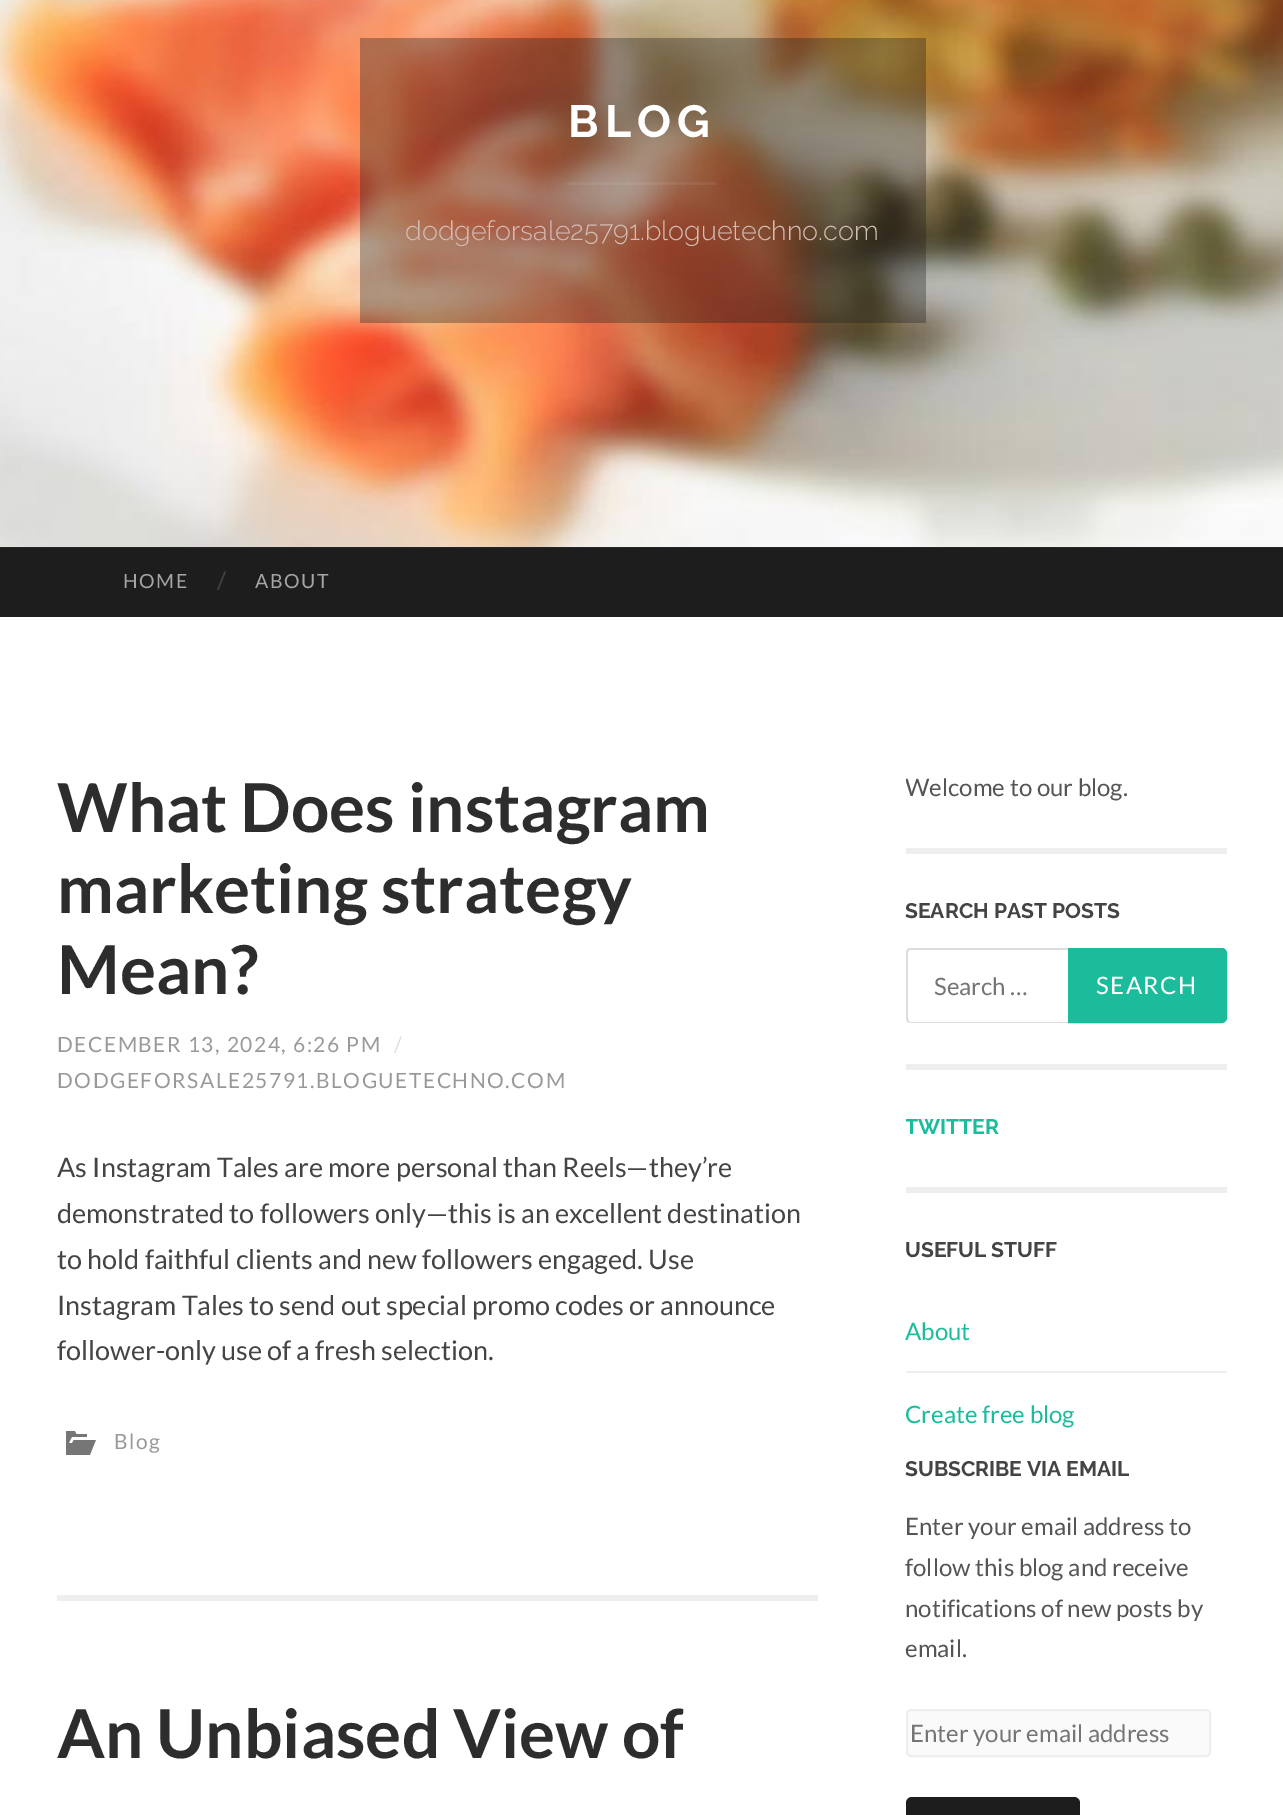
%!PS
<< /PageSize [1283 1815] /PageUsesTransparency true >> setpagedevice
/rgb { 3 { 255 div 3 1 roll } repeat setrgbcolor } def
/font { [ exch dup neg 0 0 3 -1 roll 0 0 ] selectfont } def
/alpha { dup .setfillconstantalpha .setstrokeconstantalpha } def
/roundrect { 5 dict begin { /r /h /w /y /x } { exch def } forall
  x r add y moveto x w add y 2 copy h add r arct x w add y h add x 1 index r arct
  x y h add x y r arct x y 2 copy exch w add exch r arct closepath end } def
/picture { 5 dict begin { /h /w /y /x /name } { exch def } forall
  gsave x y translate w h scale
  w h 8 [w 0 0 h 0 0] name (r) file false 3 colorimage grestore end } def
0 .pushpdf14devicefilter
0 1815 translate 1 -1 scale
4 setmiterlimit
255 255 255 rgb
0 0 1283 1815 rectfill
38 38 38 rgb
0 547 1283 1 rectfill
(img/1.rgb) 0 0 1283 547 picture
0.34 alpha
[
  [360 38 566 285 29 29 29]
] { aload pop rgb rectfill } forall
0.06 alpha
[
  [567 182 150 3 255 255 255]
] { aload pop rgb rectfill } forall
1 alpha
[
  [0 548 1283 69 29 29 29]
  [57 1595 761 6 238 238 238]
] { aload pop rgb rectfill } forall
(img/2.rgb) 66 1431 30 24 picture
906 848 321 6 rectfill
906 1064 321 6 rectfill
221 221 221 rgb
910 948 moveto 1224 948 lineto 1224 1023 lineto 910 1023 lineto 908 1023 906 1021 906 1018 curveto 906 952 lineto 906 950 908 948 910 948 curveto closepath 910 950 moveto 1224 950 lineto 1224 1022 lineto 910 1022 lineto 909 1022 908 1020 908 1018 curveto 908 952 lineto 908 951 909 950 910 950 curveto closepath eofill
26 188 156 rgb
1069 949 moveto 1222 949 lineto 1224 949 1226 951 1226 953 curveto 1226 1018 lineto 1226 1020 1224 1022 1222 1022 curveto 1069 1022 lineto closepath gsave fill grestore
2 setlinewidth
stroke
238 238 238 rgb
906 1187 321 6 rectfill
906 1371 321 2 rectfill
250 250 250 rgb
907 1710 303 46 4 roundrect gsave fill grestore
238 238 238 rgb
stroke
29 29 29 rgb
906 1797 174 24 6 roundrect fill
/Raleway-Bold 45 font
255 255 255 rgb
568 137 moveto 6 0 (BLOG) ashow
/Raleway-Light 27 font
211 188 179 rgb
405 240 moveto (dodgeforsale25791.bloguetechno.com) show
/Lato-Regular 19.5 font
165 165 165 rgb
123 588 moveto 1.5 0 (HOME) ashow
/Lato-Regular 24 font
68 68 68 rgb
217 589 moveto (/) show
/Lato-Regular 19.5 font
165 165 165 rgb
255 588 moveto 1.5 0 (ABOUT) ashow
/Lato-Bold 67.5 font
45 45 45 rgb
[
  [(What Does instagram) 57 832]
  [(marketing strategy) 57 913]
  [(Mean?) 57 994]
] { aload pop moveto show } forall
/Lato-Regular 21 font
153 153 153 rgb
57 1052 moveto 1.5 0 (DECEMBER 13, 2024, 6:26 PM) ashow
221 221 221 rgb
394 1052 moveto 1.5 0 (/) ashow
153 153 153 rgb
57 1088 moveto 1.5 0 (DODGEFORSALE25791.BLOGUETECHNO.COM) ashow
/Lato-Regular 27 font
68 68 68 rgb
[
  [(As Instagram Tales are more personal than Reels—they’re) 57 1177]
  [(demonstrated to followers only—this is an excellent destination) 57 1223]
  [(to hold faithful clients and new followers engaged. Use) 57 1269]
  [(Instagram Tales to send out special promo codes or announce) 57 1315]
  [(follower-only use of a fresh selection.) 57 1360]
] { aload pop moveto show } forall
/Lato-Regular 21 font
153 153 153 rgb
114 1449 moveto 1.5 0 (Blog) ashow
/Lato-Bold 67.5 font
45 45 45 rgb
57 1758 moveto (An Unbiased View of) show
gsave
906 767 321 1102 rectclip
/Lato-Regular 24 font
85 85 85 rgb
905 796 moveto (Welcome to our blog.) show
grestore
/Raleway-Bold 21 font
68 68 68 rgb
905 918 moveto (SEARCH PAST POSTS) show
/Lato-Regular 24 font
117 117 117 rgb
934 995 moveto (Search …) show
255 255 255 rgb
1096 994 moveto 1.5 0 (SEARCH) ashow
gsave
906 767 321 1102 rectclip
/Raleway-Bold 21 font
26 188 156 rgb
905 1134 moveto (TWITTER) show
grestore
/Raleway-Bold 21 font
68 68 68 rgb
905 1257 moveto (USEFUL STUFF) show
/Lato-Regular 24 font
26 188 156 rgb
905 1340 moveto (About) show
905 1423 moveto (Create free blog) show
/Raleway-Bold 21 font
68 68 68 rgb
905 1476 moveto (SUBSCRIBE VIA EMAIL) show
/Lato-Regular 24 font
85 85 85 rgb
[
  [(Enter your email address to) 905 1535]
  [(follow this blog and receive) 905 1576]
  [(notifications of new posts by) 905 1617]
  [(email.) 905 1657]
] { aload pop moveto show } forall
117 117 117 rgb
910 1742 moveto (Enter your email address) show
.poppdf14devicefilter showpage
